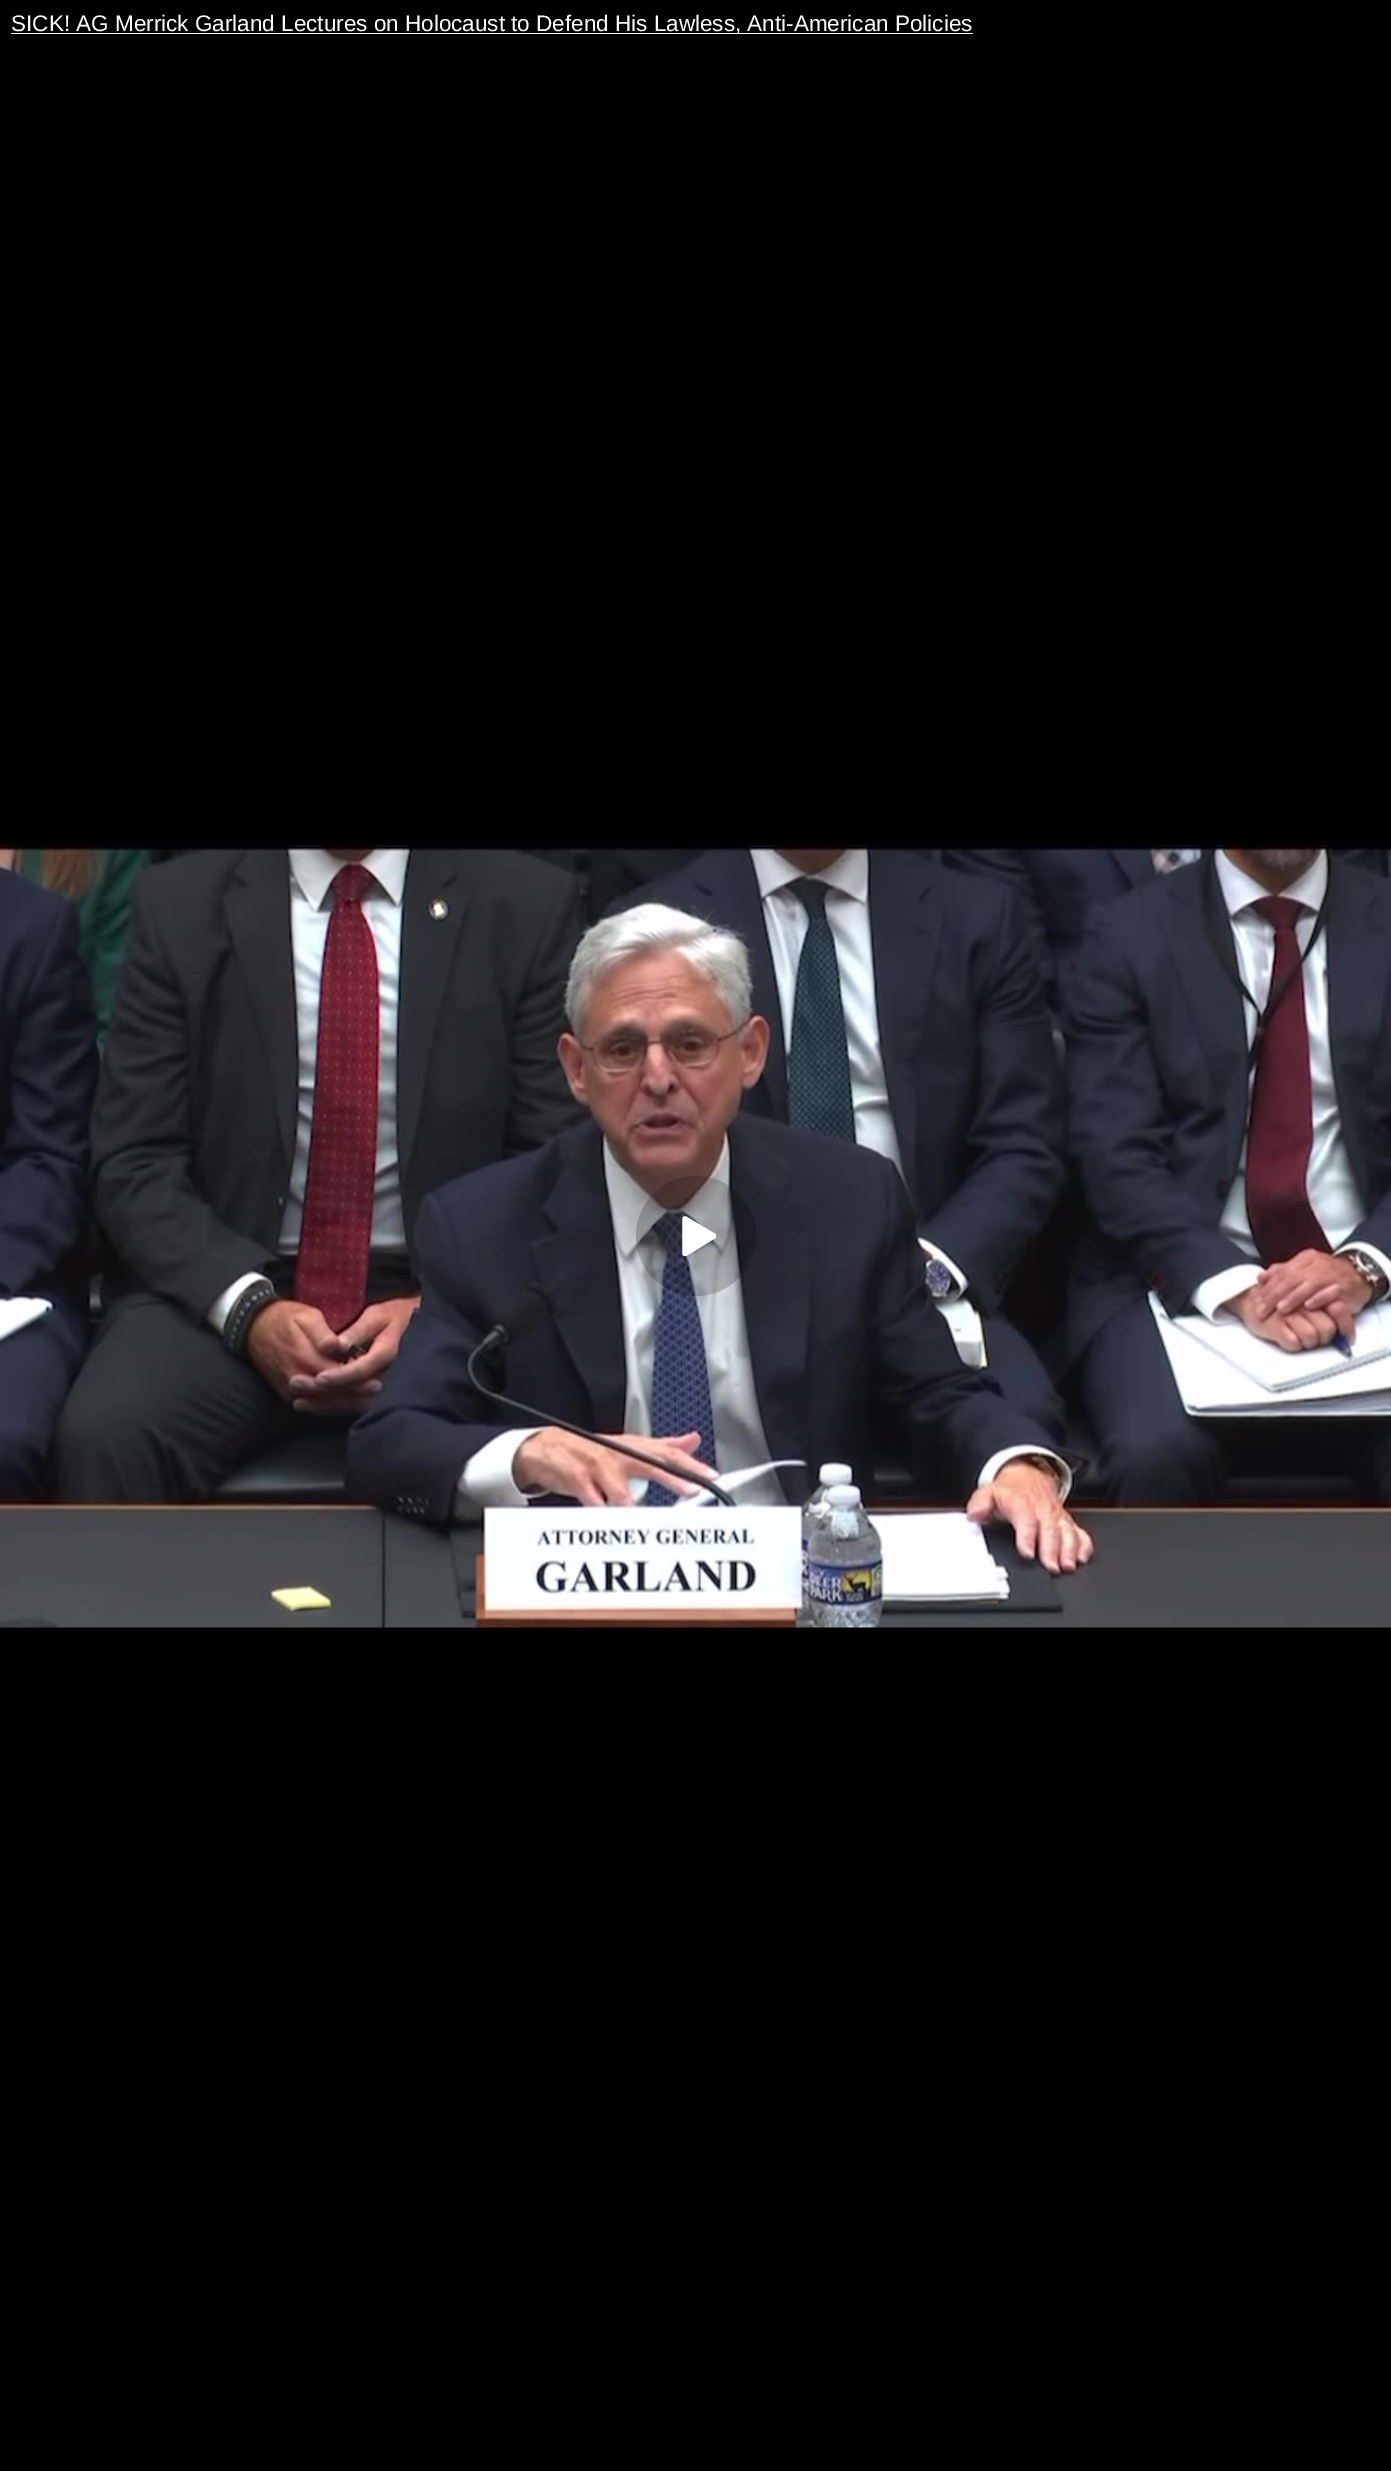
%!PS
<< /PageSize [1391 2471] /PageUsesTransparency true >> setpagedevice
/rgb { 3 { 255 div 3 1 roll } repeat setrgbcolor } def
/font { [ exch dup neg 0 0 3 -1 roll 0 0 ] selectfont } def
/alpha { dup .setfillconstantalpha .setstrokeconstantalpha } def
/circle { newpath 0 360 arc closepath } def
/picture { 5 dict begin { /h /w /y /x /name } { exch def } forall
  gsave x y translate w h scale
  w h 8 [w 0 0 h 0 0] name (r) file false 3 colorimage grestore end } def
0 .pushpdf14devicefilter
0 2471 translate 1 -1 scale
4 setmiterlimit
0 0 0 rgb
0 0 1391 2471 rectfill
255 255 255 rgb
11 33 962 1 rectfill
(img/1.rgb) 0 843 1391 785 picture
0.2 alpha
0 0 0 rgb
696 1236 60 circle fill
1 alpha
255 255 255 rgb
713.5 1236 moveto 685 1219 lineto 685 1253.5 lineto closepath fill
gsave
676 1216 40 40 rectclip
5.5 setlinewidth
1 setlinejoin
713.5 1236 moveto 685 1219 lineto 685 1253.5 lineto closepath stroke
grestore
/LiberationSans-Regular 22.5 font
11 31 moveto (SICK! AG Merrick Garland Lectures on Holocaust to Defend His Lawless, Anti-American Policies) show
.poppdf14devicefilter showpage
